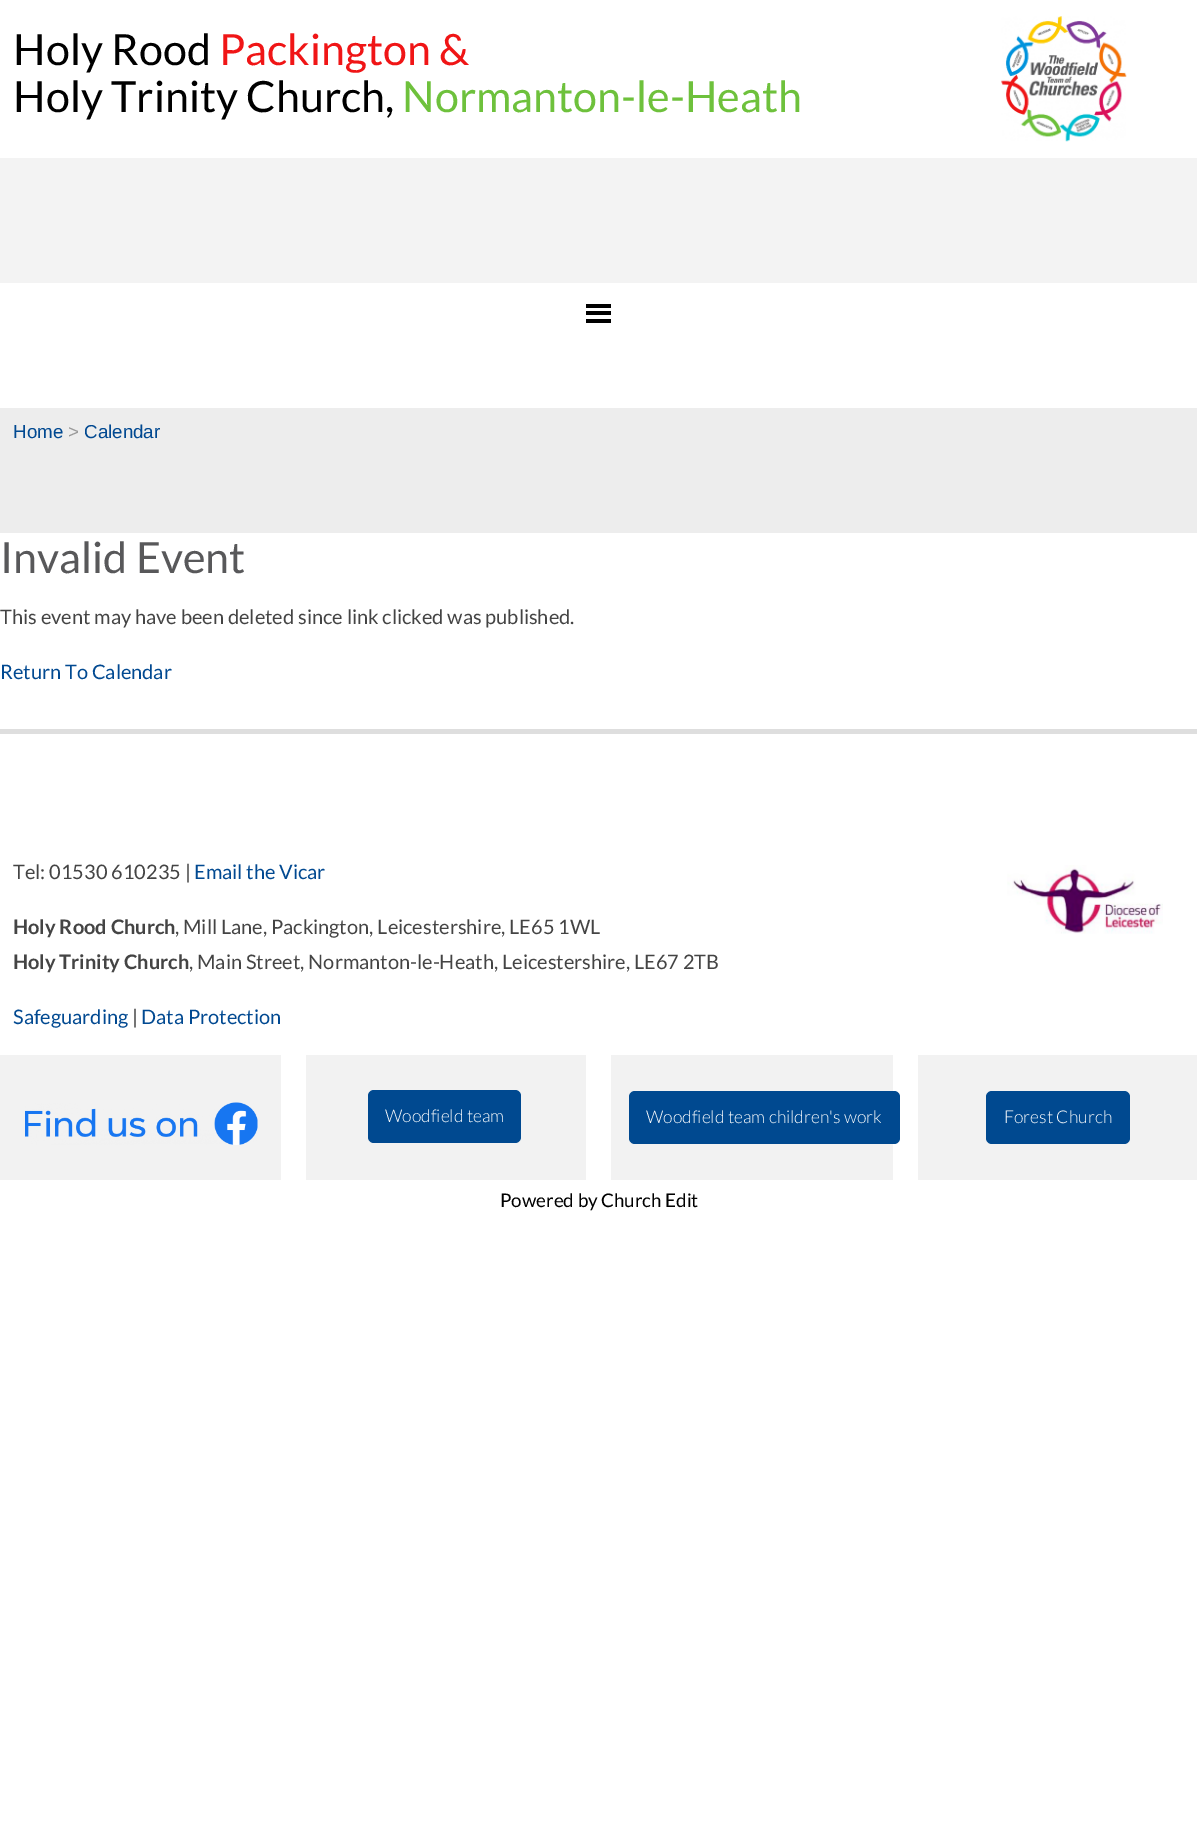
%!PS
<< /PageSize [1197 1822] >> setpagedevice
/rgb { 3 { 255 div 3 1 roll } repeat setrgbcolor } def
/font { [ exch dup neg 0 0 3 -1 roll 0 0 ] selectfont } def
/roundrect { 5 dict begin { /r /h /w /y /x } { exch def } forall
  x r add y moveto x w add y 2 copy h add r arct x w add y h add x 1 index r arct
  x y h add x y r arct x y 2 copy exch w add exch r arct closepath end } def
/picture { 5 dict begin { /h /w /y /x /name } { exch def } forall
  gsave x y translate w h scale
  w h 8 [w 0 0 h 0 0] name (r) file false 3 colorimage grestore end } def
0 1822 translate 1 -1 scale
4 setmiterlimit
255 255 255 rgb
0 0 1197 1822 rectfill
(img/1.rgb) 1001 16 126 126 picture
[
  [0 158 1197 125 243 243 243]
  [586 304 25 4 0 0 0]
  [586 311 25 4 0 0 0]
  [586 319 25 4 0 0 0]
  [0 408 1197 125 237 237 237]
  [0 729 1197 5 222 222 222]
] { aload pop rgb rectfill } forall
(img/2.rgb) 1007 865 156 69 picture
242 242 242 rgb
0 1055 281 125 rectfill
(img/3.rgb) 25 1102 233 43 picture
306 1055 280 125 rectfill
0 73 144 rgb
368 1090 153 53 6 roundrect fill
242 242 242 rgb
611 1055 282 125 rectfill
0 73 144 rgb
629 1091 271 53 6 roundrect fill
242 242 242 rgb
918 1055 279 125 rectfill
0 73 144 rgb
986 1091 144 53 6 roundrect fill
/Lato-Regular 43.1 font
0 0 0 rgb
13 65 moveto (Holy Rood) show
240 21 22 rgb
219 65 moveto (Packington &) show
0 0 0 rgb
13 112 moveto (Holy Trinity Church,) show
110 193 60 rgb
402 112 moveto (Normanton-le-Heath) show
/LiberationSans-Regular 18.75 font
1 73 145 rgb
13 438 moveto (Home) show
153 153 153 rgb
68 438 moveto (>) show
1 73 145 rgb
84 438 moveto (Calendar) show
/Lato-Regular 43.1 font
88 88 90 rgb
0 573 moveto (Invalid Event) show
/Lato-Regular 20 font
68 68 68 rgb
0 624 moveto (This event may have been deleted since link clicked was published.) show
1 73 145 rgb
0 679 moveto (Return To Calendar) show
68 68 68 rgb
13 879 moveto (Tel: 01530 610235 |) show
1 73 145 rgb
194 879 moveto (Email the Vicar) show
/Lato-Bold 20 font
68 68 68 rgb
13 934 moveto (Holy Rood Church) show
/Lato-Regular 20 font
175 934 moveto (, Mill Lane, Packington, Leicestershire, LE65 1WL) show
/Lato-Bold 20 font
13 969 moveto (Holy Trinity Church) show
/Lato-Regular 20 font
189 969 moveto (, Main Street, Normanton-le-Heath, Leicestershire, LE67 2TB) show
1 73 145 rgb
13 1024 moveto (Safeguarding) show
68 68 68 rgb
132 1024 moveto (|) show
1 73 145 rgb
141 1024 moveto (Data Protection) show
/Lato-Light 17.5 font
255 255 255 rgb
[
  [(Woodfield team) 385 1122]
  [(Woodfield team children's work) 646 1123]
  [(Forest Church) 1004 1123]
] { aload pop moveto show } forall
/Lato-Regular 18.75 font
0 0 0 rgb
500 1207 moveto (Powered by Church Edit) show
showpage
